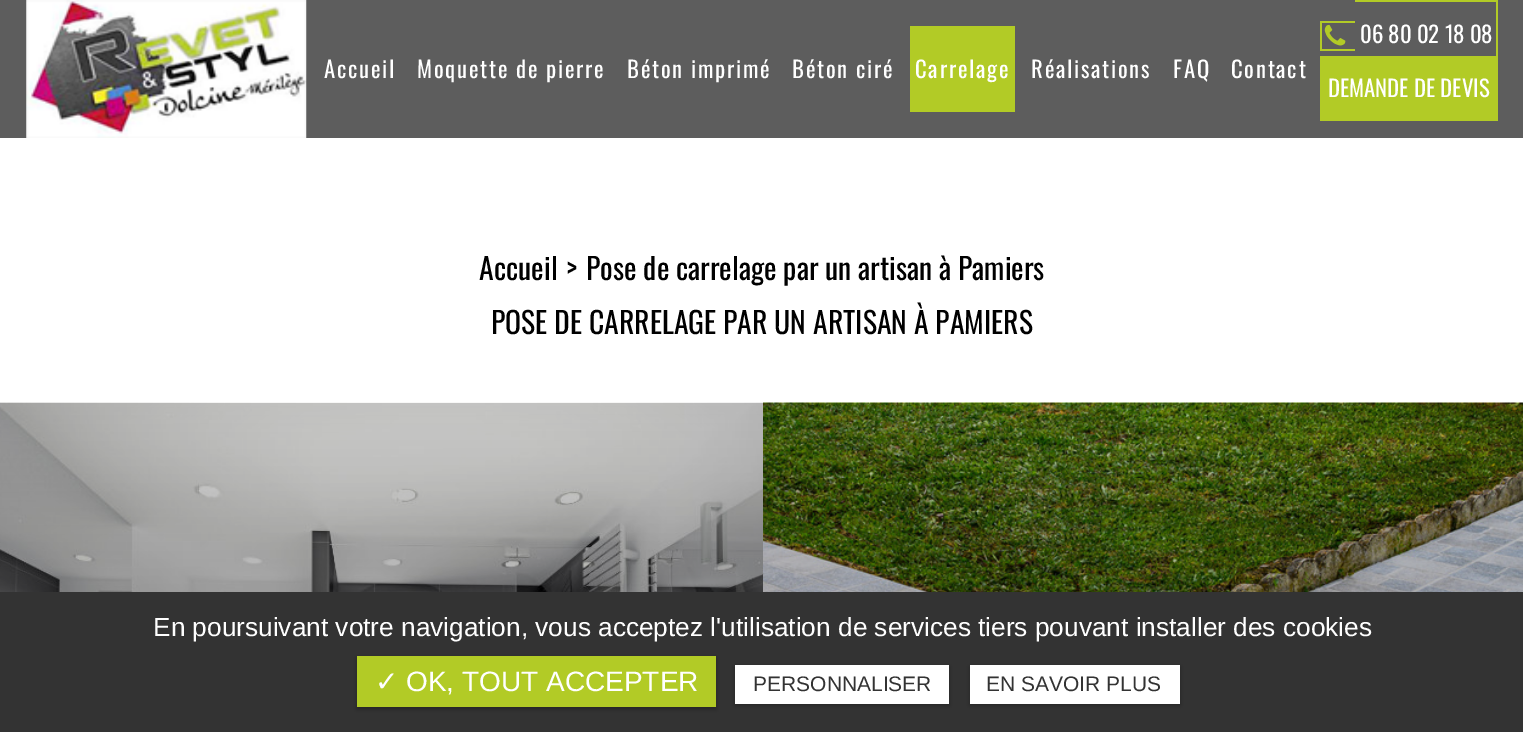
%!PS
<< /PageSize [1523 732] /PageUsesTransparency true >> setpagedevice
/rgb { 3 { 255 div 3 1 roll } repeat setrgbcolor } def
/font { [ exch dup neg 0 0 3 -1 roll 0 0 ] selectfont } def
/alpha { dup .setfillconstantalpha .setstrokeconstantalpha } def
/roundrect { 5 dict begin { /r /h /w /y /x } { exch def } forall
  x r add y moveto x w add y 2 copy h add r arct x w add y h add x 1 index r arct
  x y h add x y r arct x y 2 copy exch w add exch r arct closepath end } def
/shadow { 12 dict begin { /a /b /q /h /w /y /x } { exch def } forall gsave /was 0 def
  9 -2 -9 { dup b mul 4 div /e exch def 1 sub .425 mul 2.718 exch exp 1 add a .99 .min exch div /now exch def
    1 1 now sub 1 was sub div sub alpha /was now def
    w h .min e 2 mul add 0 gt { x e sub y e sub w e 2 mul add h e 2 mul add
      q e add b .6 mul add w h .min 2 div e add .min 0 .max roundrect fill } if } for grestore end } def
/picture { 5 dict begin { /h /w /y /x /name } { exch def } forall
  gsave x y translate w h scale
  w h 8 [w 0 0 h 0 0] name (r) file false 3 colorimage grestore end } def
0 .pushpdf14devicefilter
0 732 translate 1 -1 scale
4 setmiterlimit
255 255 255 rgb
0 0 1523 732 rectfill
93 93 93 rgb
0 0 1523 138 rectfill
(img/1.rgb) 26 0 281 138 picture
[
  [910 26 105 86 178 203 38]
  [1320 21 35 2 178 203 38]
  [1320 49 35 2 178 203 38]
  [1320 21 2 30 178 203 38]
  [1355 0 143 2 178 203 38]
  [1496 0 2 56 178 203 38]
] { aload pop rgb rectfill } forall
(img/2.rgb) 1324 24 22 22 picture
1320 56 178 65 rectfill
(img/3.rgb) 0 402 763 190 picture
(img/4.rgb) 763 402 760 190 picture
51 51 51 rgb
0 592 1523 140 rectfill
0 0 0 rgb
357 658 359 51 0 2.5 0.3 shadow
178 203 38 rgb
357 656 359 51 rectfill
0 0 0 rgb
735 667 214 38 0 2.5 0.3 shadow
255 255 255 rgb
735 665 214 39 rectfill
0 0 0 rgb
970 667 210 38 0 2.5 0.3 shadow
255 255 255 rgb
970 665 210 39 rectfill
/Oswald-Regular 22.75 font
324 78 moveto 1.75 0 (Accueil) ashow
417 78 moveto 1.75 0 (Moquette de pierre) ashow
627 78 moveto 1.75 0 (Béton imprimé) ashow
792 78 moveto 1.75 0 (Béton ciré) ashow
915 78 moveto 1.75 0 (Carrelage) ashow
1031 78 moveto 1.75 0 (Réalisations) ashow
1173 78 moveto 1.75 0 (FAQ) ashow
1231 78 moveto 1.75 0 (Contact) ashow
1360 43 moveto (06 80 02 18 08) show
1328 97 moveto (DEMANDE DE DEVIS) show
/Oswald-Regular 29.75 font
0 0 0 rgb
[
  [(Accueil) 479 280]
  [(>) 566 280]
  [(Pose de carrelage par un artisan à Pamiers) 586 280]
  [(POSE DE CARRELAGE PAR UN ARTISAN À PAMIERS) 491 334]
] { aload pop moveto show } forall
/LiberationSans-Regular 26.25 font
255 255 255 rgb
153 636 moveto (En poursuivant votre navigation, vous acceptez l'utilisation de services tiers pouvant installer des cookies) show
/DejaVuSans-Regular 28 font
375 691 moveto (✓) show
/LiberationSans-Regular 28 font
406 691 moveto (OK, TOUT ACCEPTER) show
/LiberationSans-Regular 21 font
51 51 51 rgb
753 691 moveto (PERSONNALISER) show
986 691 moveto (EN SAVOIR PLUS) show
.poppdf14devicefilter showpage
